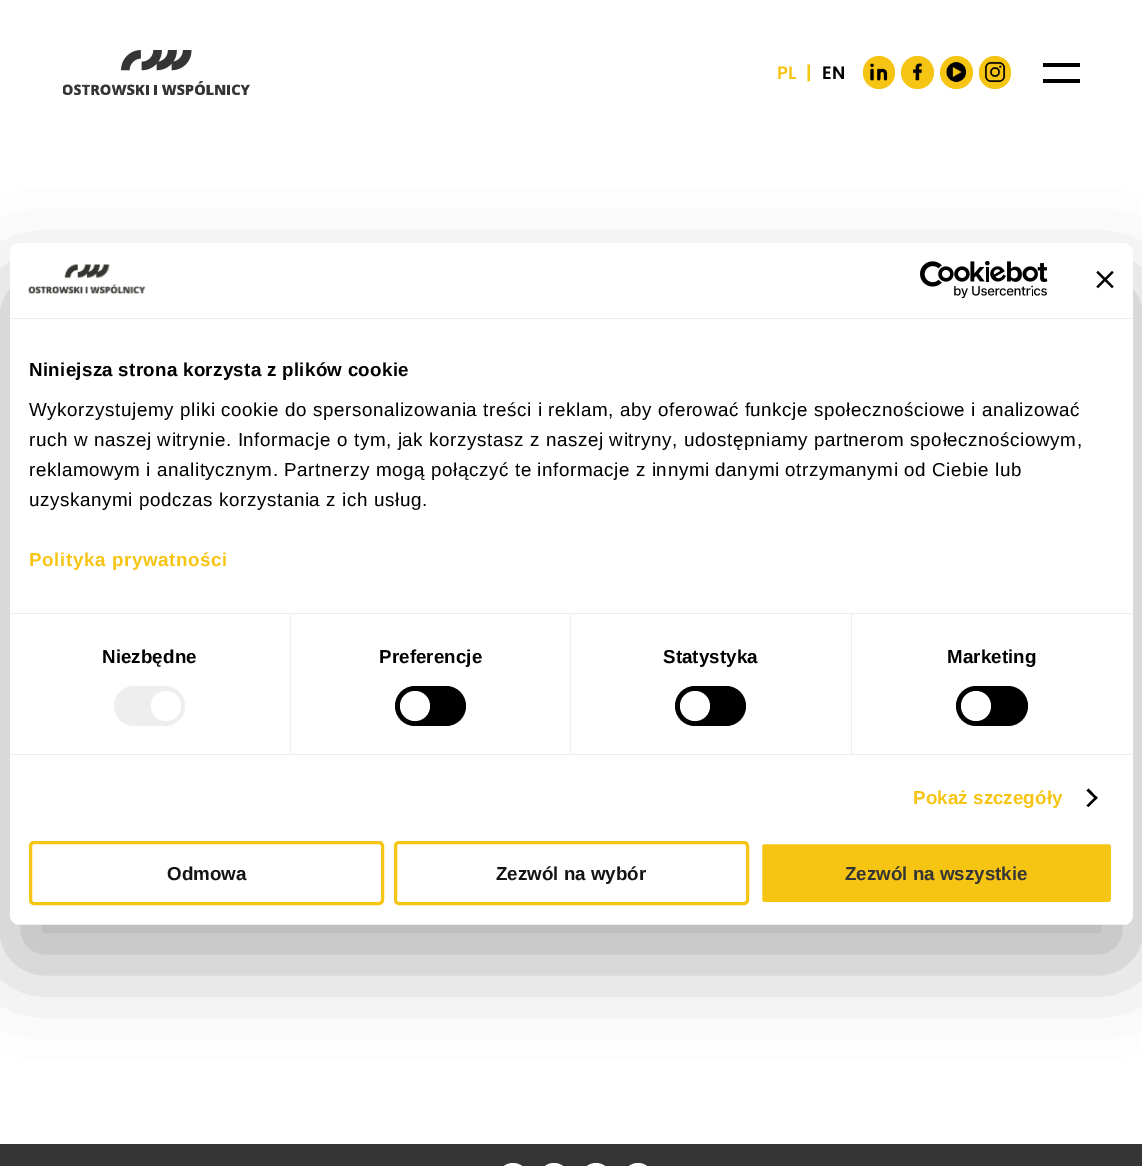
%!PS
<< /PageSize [1142 1166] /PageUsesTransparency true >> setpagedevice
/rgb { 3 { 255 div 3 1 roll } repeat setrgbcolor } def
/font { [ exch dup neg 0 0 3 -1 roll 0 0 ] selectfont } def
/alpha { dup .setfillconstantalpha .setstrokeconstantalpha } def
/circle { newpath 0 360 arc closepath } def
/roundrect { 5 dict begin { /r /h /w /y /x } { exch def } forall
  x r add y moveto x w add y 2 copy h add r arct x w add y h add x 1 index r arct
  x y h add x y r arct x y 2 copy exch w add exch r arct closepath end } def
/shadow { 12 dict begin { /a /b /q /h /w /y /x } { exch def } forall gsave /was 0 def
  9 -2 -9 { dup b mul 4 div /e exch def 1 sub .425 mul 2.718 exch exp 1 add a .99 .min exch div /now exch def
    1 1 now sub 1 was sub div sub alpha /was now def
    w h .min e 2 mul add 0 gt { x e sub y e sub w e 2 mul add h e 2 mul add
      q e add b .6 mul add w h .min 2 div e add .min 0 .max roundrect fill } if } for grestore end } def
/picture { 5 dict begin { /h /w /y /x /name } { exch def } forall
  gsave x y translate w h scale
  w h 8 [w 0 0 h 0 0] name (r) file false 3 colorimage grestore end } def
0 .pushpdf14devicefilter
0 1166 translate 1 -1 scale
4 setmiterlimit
255 255 255 rgb
0 0 1142 1166 rectfill
(img/1.rgb) 63 50 187 45 picture
246 196 19 rgb
863 56 32 33 16 roundrect fill
(img/2.rgb) 870 63 18 18 picture
917.5 72.5 16.5 circle fill
(img/3.rgb) 913 63 9 18 picture
956.5 72.5 16.5 circle fill
(img/4.rgb) 946 61 21 22 picture
979 56 32 33 16 roundrect fill
(img/5.rgb) 984 61 22 22 picture
0 0 0 rgb
1043 63 37 4 rectfill
1043 79 37 4 rectfill
10 283 1123 682 10 42.5 0.3 shadow
255 255 255 rgb
10 243 1123 682 10 roundrect fill
238 238 238 rgb
10 318 1123 1 rectfill
(img/6.rgb) 28 264 118 30 picture
(img/7.rgb) 920 261 128 38 picture
(img/8.rgb) 1096 271 18 18 picture
[
  [10 613 1123 1 238 238 238]
  [10 754 1123 1 238 238 238]
  [290 614 1 140 238 238 238]
] { aload pop rgb rectfill } forall
114 686 71 40 20 roundrect fill
255 255 255 rgb
166 706 15 circle fill
238 238 238 rgb
570 614 1 140 rectfill
0 0 0 rgb
395 686 71 40 20 roundrect fill
255 255 255 rgb
415 706 15 circle fill
238 238 238 rgb
851 614 1 140 rectfill
0 0 0 rgb
675 686 71 40 20 roundrect fill
255 255 255 rgb
695 706 15 circle fill
0 0 0 rgb
956 686 72 40 20 roundrect fill
255 255 255 rgb
976 706 15 circle fill
0 0 0 rgb
1088.5 788.5 moveto 1097.5 798 lineto 1096 799.5 lineto 1086.5 790.5 lineto closepath fill
1096 796 moveto 1097.5 798 lineto 1088.5 807 lineto 1086.5 805.5 lineto closepath fill
gsave
10 243 1123 682 10 roundrect clip newpath
238 238 238 rgb
10 924 1123 1 rectfill
grestore
246 196 19 rgb
3 setlinewidth
30.5 842.5 352 61 3.5 roundrect stroke
395.5 842.5 352 61 3.5 roundrect stroke
760.5 842.5 352 61 3.5 roundrect gsave fill grestore
255 255 255 rgb
stroke
53 53 53 rgb
0 1144 1142 22 rectfill
255 255 255 rgb
498 1163 30 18 15 roundrect fill
539 1163 30 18 15 roundrect fill
581 1163 30 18 15 roundrect fill
623 1163 30 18 15 roundrect fill
/Poppins-SemiBold 18 font
246 196 19 rgb
777 79 moveto (PL) show
806 79 moveto (|) show
0 0 0 rgb
822 79 moveto (EN) show
/LiberationSans-Bold 18.75 font
29 376 moveto 0.3 0 (Niniejsza strona korzysta z plików cookie) ashow
/LiberationSans-Regular 18.75 font
29 416 moveto 0.62 0 (Wykorzystujemy pliki cookie do spersonalizowania treści i reklam, aby oferować funkcje społecznościowe i analizować) ashow
29 446 moveto 0.62 0 (ruch w naszej witrynie. Informacje o tym, jak korzystasz z naszej witryny, udostępniamy partnerom społecznościowym,) ashow
29 476 moveto 0.62 0 (reklamowym i analitycznym. Partnerzy mogą połączyć te informacje z innymi danymi otrzymanymi od Ciebie lub) ashow
29 506 moveto 0.62 0 (uzyskanymi podczas korzystania z ich usług.) ashow
/LiberationSans-Bold 18.75 font
246 196 19 rgb
29 566 moveto 0.62 0 (Polityka prywatności) ashow
0 0 0 rgb
102 663 moveto 0.1 0 (Niezbędne) ashow
379 663 moveto 0.1 0 (Preferencje) ashow
663 663 moveto 0.1 0 (Statystyka) ashow
947 663 moveto 0.1 0 (Marketing) ashow
246 196 19 rgb
913 804 moveto 0.1 0 (Pokaż szczegóły) ashow
20 20 20 rgb
167 880 moveto (Odmowa) show
496 880 moveto (Zezwól na wybór) show
53 53 53 rgb
845 880 moveto (Zezwól na wszystkie) show
.poppdf14devicefilter showpage
